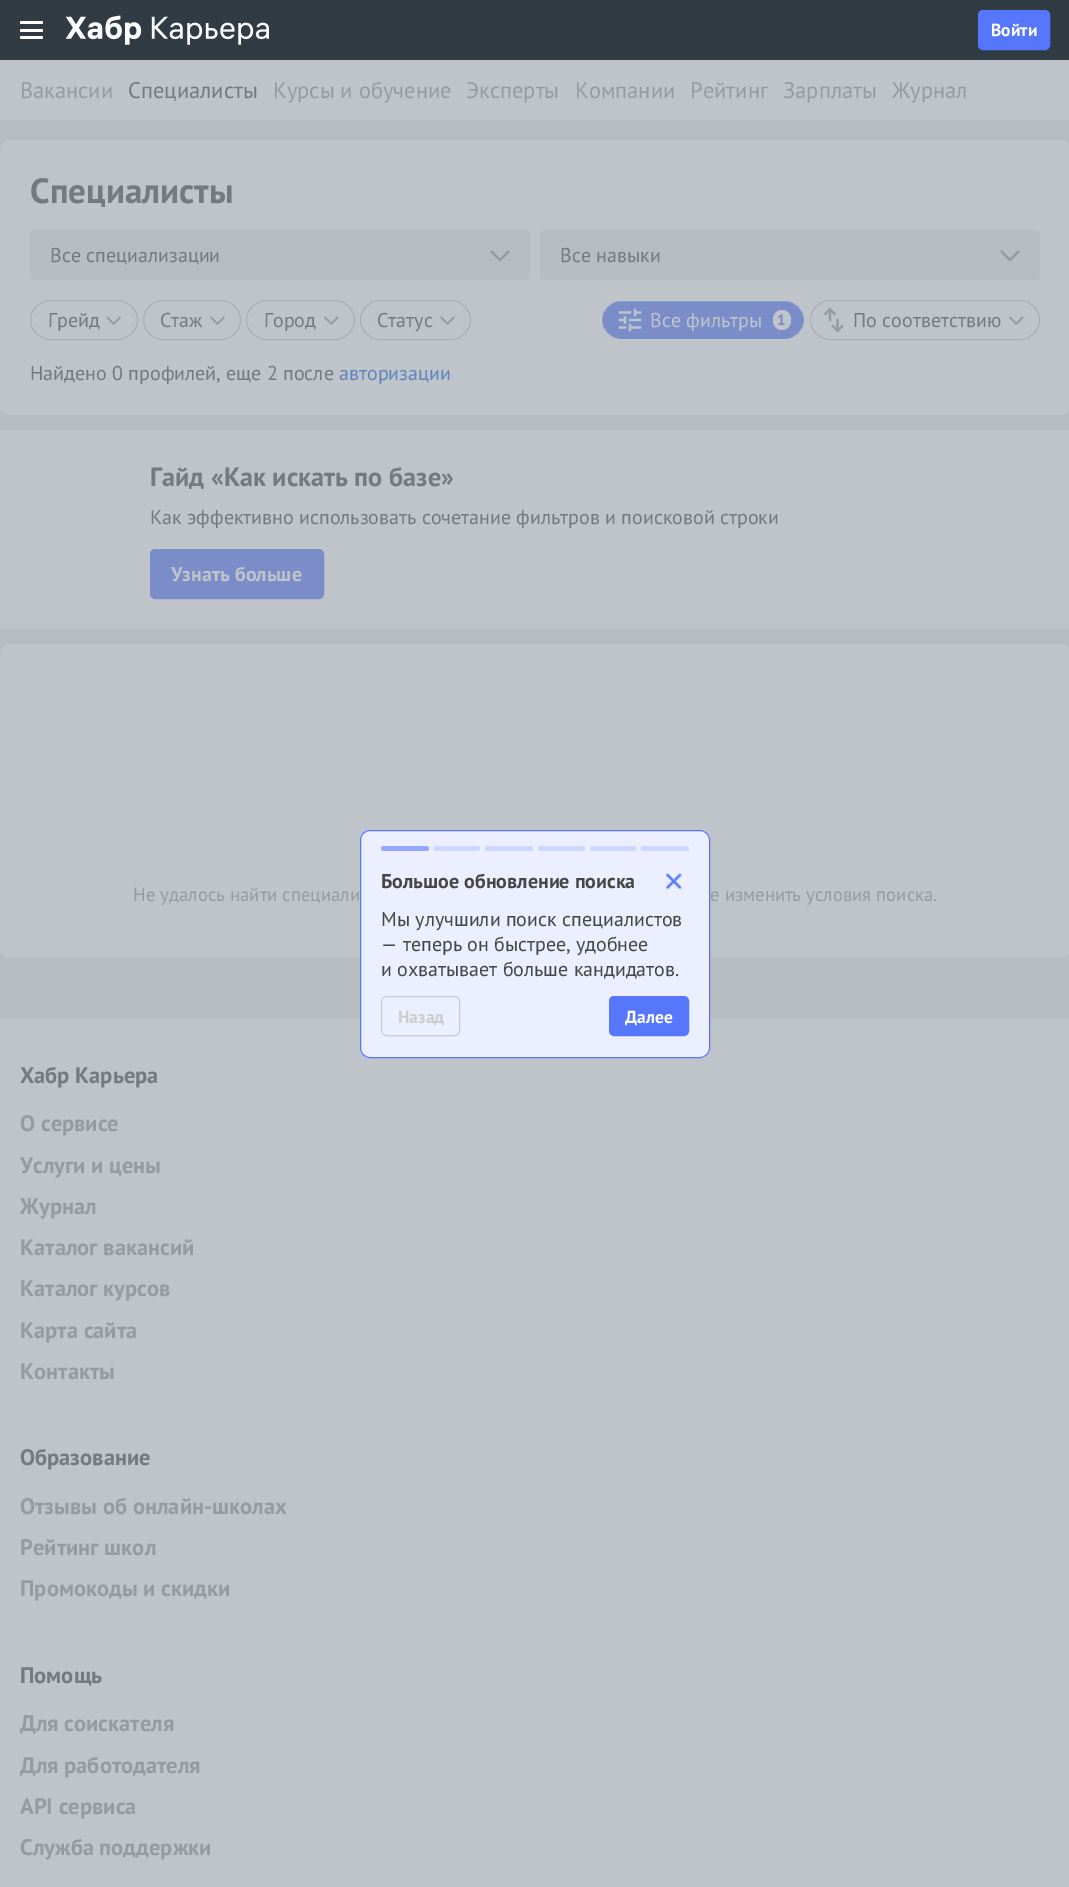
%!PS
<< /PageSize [1069 1887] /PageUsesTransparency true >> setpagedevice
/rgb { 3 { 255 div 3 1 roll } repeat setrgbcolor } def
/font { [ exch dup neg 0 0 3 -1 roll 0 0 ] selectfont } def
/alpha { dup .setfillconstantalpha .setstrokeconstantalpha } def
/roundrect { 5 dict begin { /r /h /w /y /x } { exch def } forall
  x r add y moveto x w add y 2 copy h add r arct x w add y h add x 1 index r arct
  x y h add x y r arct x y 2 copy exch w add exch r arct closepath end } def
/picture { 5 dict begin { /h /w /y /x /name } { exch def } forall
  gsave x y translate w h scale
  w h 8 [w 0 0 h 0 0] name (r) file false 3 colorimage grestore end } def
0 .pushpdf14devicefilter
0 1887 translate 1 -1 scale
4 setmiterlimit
237 237 237 rgb
0 0 1069 1887 rectfill
255 255 255 rgb
0 60 1069 60 rectfill
0 140 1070 275 10 roundrect fill
237 237 237 rgb
30 230 500 50 5 roundrect fill
(img/2.rgb) 490 250 20 12 picture
540 230 500 50 5 roundrect fill
(img/3.rgb) 1000 250 20 12 picture
204 204 204 rgb
30.5 300.5 107 39 19.5 roundrect stroke
(img/4.rgb) 106 316 15 9 picture
143.5 300.5 97 39 19.5 roundrect stroke
(img/5.rgb) 210 316 15 9 picture
246.5 300.5 108 39 19.5 roundrect stroke
(img/6.rgb) 324 316 15 9 picture
360.5 300.5 110 39 19.5 roundrect stroke
(img/5.rgb) 440 316 15 9 picture
86 119 252 rgb
601.5 300.5 203 39 19.5 roundrect gsave fill grestore
255 255 255 rgb
stroke
(img/7.rgb) 618 308 24 24 picture
773 310 18 20 9 roundrect fill
204 204 204 rgb
810.5 300.5 229 39 19.5 roundrect stroke
(img/8.rgb) 823 307 21 26 picture
(img/9.rgb) 1009 316 15 9 picture
255 255 255 rgb
0 430 1069 199 rectfill
86 119 252 rgb
150.5 549.5 173 49 4.5 roundrect gsave fill grestore
stroke
255 255 255 rgb
0 644 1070 314 10 roundrect fill
0 1018 1069 869 rectfill
/PTSans-Regular 22.5 font
153 153 153 rgb
20 98 moveto (Вакансии) show
70 70 70 rgb
128 98 moveto (Специалисты) show
153 153 153 rgb
[
  [(Курсы и обучение) 273 98]
  [(Эксперты) 466 98]
  [(Компании) 575 98]
  [(Рейтинг) 690 98]
  [(Зарплаты) 783 98]
  [(Журнал) 892 98]
] { aload pop moveto show } forall
/PTSans-Bold 35 font
70 70 70 rgb
30 203 moveto (Специалисты) show
/PTSans-Regular 20 font
[
  [(Все специализации) 50 262]
  [(Все навыки) 560 262]
  [(Грейд) 48 327]
  [(Стаж) 160 327]
  [(Город) 264 327]
  [(Статус) 377 327]
] { aload pop moveto show } forall
255 255 255 rgb
650 327 moveto (Все фильтры) show
/PTSans-Bold 15 font
86 119 252 rgb
777 325 moveto (1) show
/PTSans-Regular 20 font
70 70 70 rgb
853 327 moveto (По соответствию) show
30 380 moveto (Найдено 0 профилей, еще 2 после) show
20 99 217 rgb
339 380 moveto (авторизации) show
/PTSans-Bold 26.25 font
70 70 70 rgb
150 486 moveto (Гайд «Как искать по базе») show
/PTSans-Regular 20 font
150 524 moveto (Как эффективно использовать сочетание фильтров и поисковой строки) show
/PTSans-Bold 20 font
255 255 255 rgb
171 581 moveto (Узнать больше) show
/PTSans-Regular 18.75 font
153 153 153 rgb
133 901 moveto (Не удалось найти специали) show
710 901 moveto (е изменить условия поиска.) show
/PTSans-Bold 22.5 font
70 70 70 rgb
20 1083 moveto (Хабр Карьера) show
153 153 153 rgb
[
  [(О сервисе) 20 1131]
  [(Услуги и цены) 20 1173]
  [(Журнал) 20 1214]
  [(Каталог вакансий) 20 1255]
  [(Каталог курсов) 20 1296]
  [(Карта сайта) 20 1338]
  [(Контакты) 20 1379]
] { aload pop moveto show } forall
70 70 70 rgb
20 1465 moveto (Образование) show
153 153 153 rgb
[
  [(Отзывы об онлайн-школах) 20 1514]
  [(Рейтинг школ) 20 1555]
  [(Промокоды и скидки) 20 1596]
] { aload pop moveto show } forall
70 70 70 rgb
20 1683 moveto (Помощь) show
153 153 153 rgb
[
  [(Для соискателя) 20 1731]
  [(Для работодателя) 20 1773]
  [(API сервиса) 20 1814]
  [(Служба поддержки) 20 1855]
] { aload pop moveto show } forall
0.6 alpha
146 156 165 rgb
15000 setlinewidth
-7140 -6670 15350 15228 7510 roundrect stroke
1 alpha
48 59 68 rgb
0 0 1069 60 rectfill
255 255 255 rgb
20 21 23 3 1.5 roundrect fill
20 36 23 3 1.5 roundrect fill
20 29 23 3 1.5 roundrect fill
(img/1.rgb) 65 15 204 30 picture
86 119 252 rgb
978.5 10.5 71 39 4.5 roundrect gsave fill grestore
1 setlinewidth
stroke
/PTSans-Bold 17.5 font
255 255 255 rgb
991 36 moveto (Войти) show
235 239 255 rgb
360.5 830.5 349 227 9.5 roundrect gsave fill grestore
86 119 252 rgb
stroke
205 215 254 rgb
641 846 48 5 2.5 roundrect fill
590 846 46 5 2.5 roundrect fill
538 846 47 5 2.5 roundrect fill
485 846 48 5 2.5 roundrect fill
434 846 46 5 2.5 roundrect fill
146 167 253 rgb
381 846 48 5 2.5 roundrect fill
(img/10.rgb) 665 873 17 17 picture
86 119 252 rgb
609.5 996.5 79 39 4.5 roundrect gsave fill grestore
stroke
255 255 255 rgb
625 1023 moveto (Далее) show
204 204 204 rgb
381.5 996.5 78 39 4.5 roundrect stroke
398 1023 moveto (Назад) show
/PTSans-Regular 20 font
70 70 70 rgb
[
  [(и охватывает больше кандидатов.) 381 976]
  [(— теперь он быстрее, удобнее) 381 951]
  [(Мы улучшили поиск специалистов) 381 926]
] { aload pop moveto show } forall
/PTSans-Bold 20 font
381 888 moveto (Большое обновление поиска) show
.poppdf14devicefilter showpage
